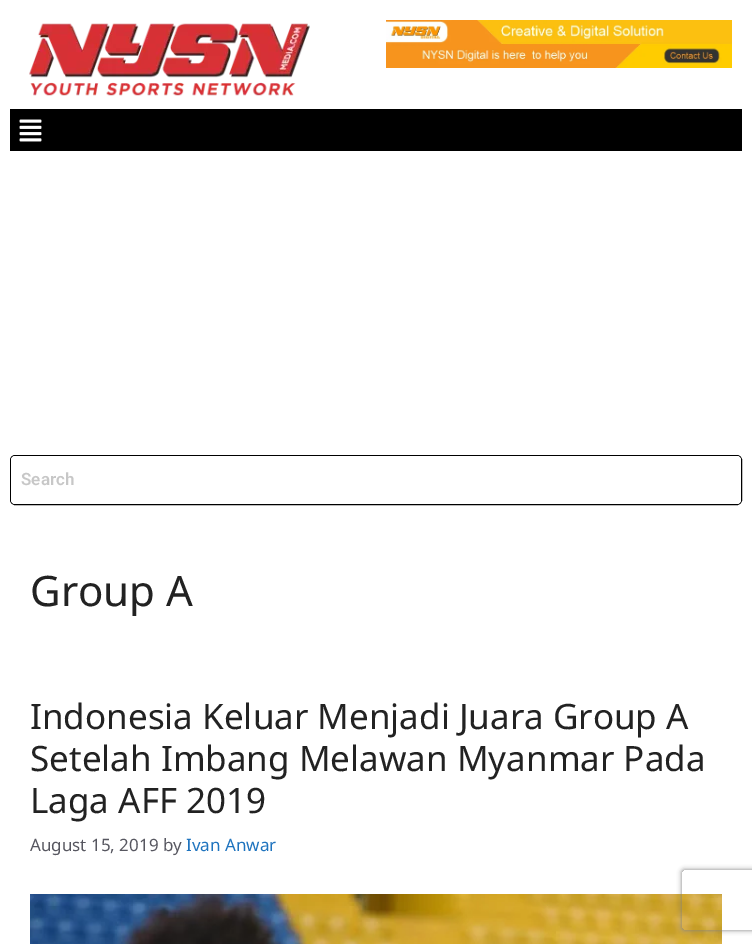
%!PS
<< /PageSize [752 944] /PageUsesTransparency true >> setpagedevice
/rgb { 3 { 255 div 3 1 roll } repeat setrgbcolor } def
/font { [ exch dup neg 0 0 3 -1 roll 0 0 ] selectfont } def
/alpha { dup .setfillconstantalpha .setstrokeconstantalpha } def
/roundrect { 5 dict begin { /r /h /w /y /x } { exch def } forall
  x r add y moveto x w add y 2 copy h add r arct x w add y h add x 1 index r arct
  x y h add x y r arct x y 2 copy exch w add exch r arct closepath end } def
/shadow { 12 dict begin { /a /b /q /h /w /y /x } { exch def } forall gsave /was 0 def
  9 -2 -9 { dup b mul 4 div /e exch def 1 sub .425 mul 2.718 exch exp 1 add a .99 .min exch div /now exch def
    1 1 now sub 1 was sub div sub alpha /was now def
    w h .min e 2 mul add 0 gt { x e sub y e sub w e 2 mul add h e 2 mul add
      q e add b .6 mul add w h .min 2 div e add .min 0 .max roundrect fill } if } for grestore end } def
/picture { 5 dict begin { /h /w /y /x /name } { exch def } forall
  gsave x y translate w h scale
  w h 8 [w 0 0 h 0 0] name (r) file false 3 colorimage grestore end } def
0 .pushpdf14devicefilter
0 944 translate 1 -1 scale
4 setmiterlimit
255 255 255 rgb
0 0 752 944 rectfill
(img/1.rgb) 29 23 281 73 picture
(img/2.rgb) 386 20 346 48 picture
0 0 0 rgb
10 109 732 42 rectfill
(img/3.rgb) 19 119 23 23 picture
10.5 455.5 731 49 4.5 roundrect stroke
255 255 255 rgb
11 456 730 48 4 roundrect fill
(img/4.rgb) 30 894 692 50 picture
gsave
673 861 moveto 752 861 lineto 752 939 lineto 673 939 lineto closepath 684 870 moveto 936 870 lineto 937 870 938 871 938 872 curveto 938 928 lineto 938 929 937 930 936 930 curveto 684 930 lineto 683 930 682 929 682 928 curveto 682 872 lineto 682 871 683 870 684 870 curveto closepath eoclip newpath
128 128 128 rgb
682 870 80 60 2 2.5 1 shadow
grestore
/Roboto-SemiBold 17 font
199 199 199 rgb
21 485 moveto (Search) show
/NotoSans-Regular 42 font
34 34 34 rgb
30 606 moveto (Group A) show
/NotoSans-Regular 35 font
[
  [(Indonesia Keluar Menjadi Juara Group A) 30 729]
  [(Setelah Imbang Melawan Myanmar Pada) 30 771]
  [(Laga AFF 2019) 30 813]
] { aload pop moveto show } forall
/NotoSans-Regular 17 font
87 87 96 rgb
30 851 moveto (August 15, 2019 by) show
30 115 190 rgb
186 851 moveto (Ivan Anwar) show
.poppdf14devicefilter showpage
